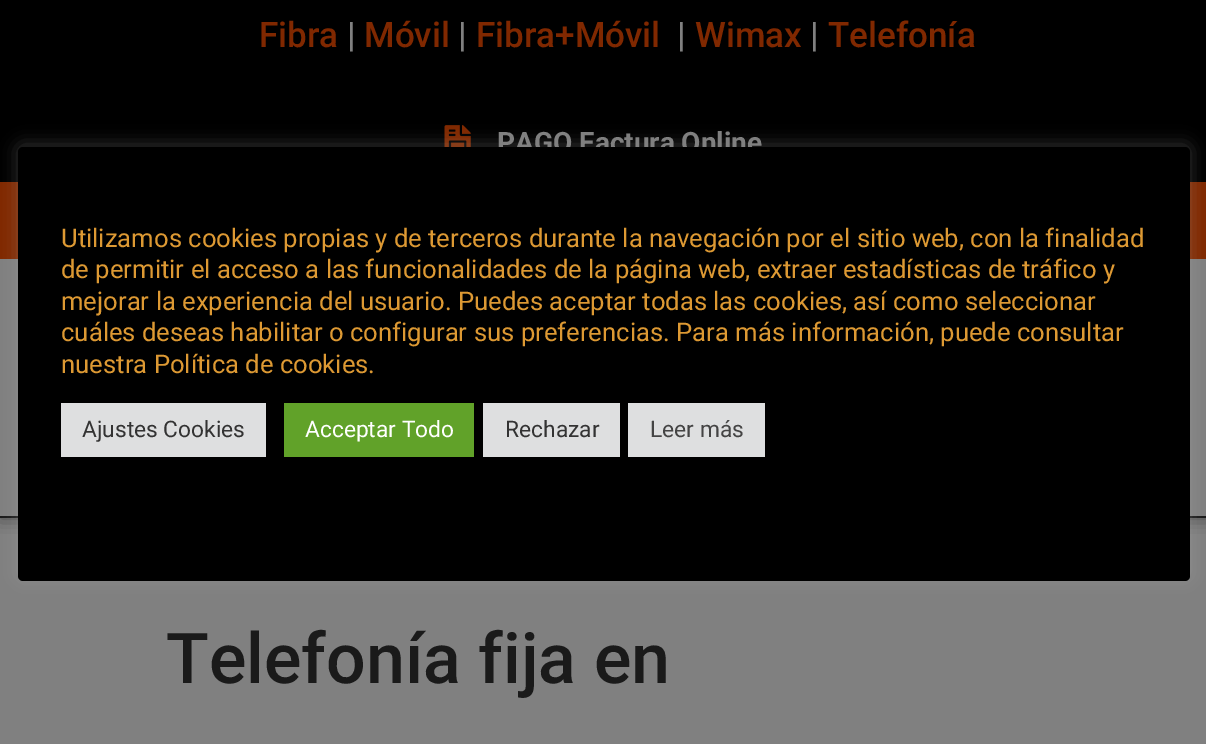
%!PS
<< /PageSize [1206 744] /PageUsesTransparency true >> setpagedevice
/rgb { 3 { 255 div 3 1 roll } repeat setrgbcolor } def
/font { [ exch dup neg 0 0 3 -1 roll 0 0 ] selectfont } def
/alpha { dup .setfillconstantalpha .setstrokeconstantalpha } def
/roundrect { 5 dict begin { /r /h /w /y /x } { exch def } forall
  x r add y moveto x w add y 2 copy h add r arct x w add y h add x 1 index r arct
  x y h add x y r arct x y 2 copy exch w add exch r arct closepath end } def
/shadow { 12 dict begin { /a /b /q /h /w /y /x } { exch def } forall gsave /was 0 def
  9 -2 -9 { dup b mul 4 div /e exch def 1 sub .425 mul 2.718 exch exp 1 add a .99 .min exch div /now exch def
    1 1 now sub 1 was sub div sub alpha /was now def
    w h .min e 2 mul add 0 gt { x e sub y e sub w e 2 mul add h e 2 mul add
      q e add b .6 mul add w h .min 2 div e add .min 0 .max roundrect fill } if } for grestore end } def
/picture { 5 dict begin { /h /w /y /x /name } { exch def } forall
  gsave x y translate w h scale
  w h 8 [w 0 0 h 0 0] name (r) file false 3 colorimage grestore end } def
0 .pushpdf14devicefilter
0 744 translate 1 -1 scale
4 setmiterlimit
128 128 128 rgb
0 0 1206 744 rectfill
0 0 0 rgb
0 0 1206 182 rectfill
(img/1.rgb) 444 125 27 22 picture
gsave
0 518 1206 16 rectclip
0 259 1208 259 0 9 0.5 shadow
grestore
128 40 0 rgb
0 182 1206 77 rectfill
26 26 26 rgb
0 516 1206 2 rectfill
172 171 171 rgb
18 145 1172 434 5 9 0.3 shadow
/Roboto-Medium 35 font
128 40 0 rgb
259 47 moveto (Fibra) show
128 128 128 rgb
347 47 moveto (|) show
128 40 0 rgb
364 47 moveto (Móvil) show
128 128 128 rgb
458 47 moveto (|) show
128 40 0 rgb
476 47 moveto (Fibra+Móvil) show
128 128 128 rgb
677 47 moveto (|) show
128 40 0 rgb
695 47 moveto (Wimax) show
128 128 128 rgb
810 47 moveto (|) show
128 40 0 rgb
828 47 moveto (Telefonía) show
/Roboto-Bold 28 font
128 128 128 rgb
497 152 moveto (PAGO Factura Online) show
0 0 0 rgb
18 147 1172 434 5 roundrect fill
/Roboto-Regular 25.65 font
221 153 51 rgb
[
  [(Utilizamos cookies propias y de terceros durante la navegación por el sitio web, con la finalidad) 61 247]
  [(de permitir el acceso a las funcionalidades de la página web, extraer estadísticas de tráfico y) 61 278]
  [(mejorar la experiencia del usuario. Puedes aceptar todas las cookies, así como seleccionar) 61 310]
  [(cuáles deseas habilitar o configurar sus preferencias. Para más información, puede consultar) 61 341]
  [(nuestra Política de cookies.) 61 373]
] { aload pop moveto show } forall
222 223 224 rgb
61 403 205 54 rectfill
/Roboto-Regular 22.75 font
51 51 51 rgb
82 437 moveto (Ajustes Cookies) show
97 162 41 rgb
284 403 190 54 rectfill
255 255 255 rgb
305 437 moveto (Acceptar Todo) show
222 223 224 rgb
483 403 137 54 rectfill
51 51 51 rgb
505 437 moveto (Rechazar) show
222 223 224 rgb
628 403 137 54 rectfill
68 68 68 rgb
650 437 moveto (Leer más) show
/Roboto-Medium 70 font
26 26 26 rgb
166 683 moveto (Telefonía fija en) show
.poppdf14devicefilter showpage
